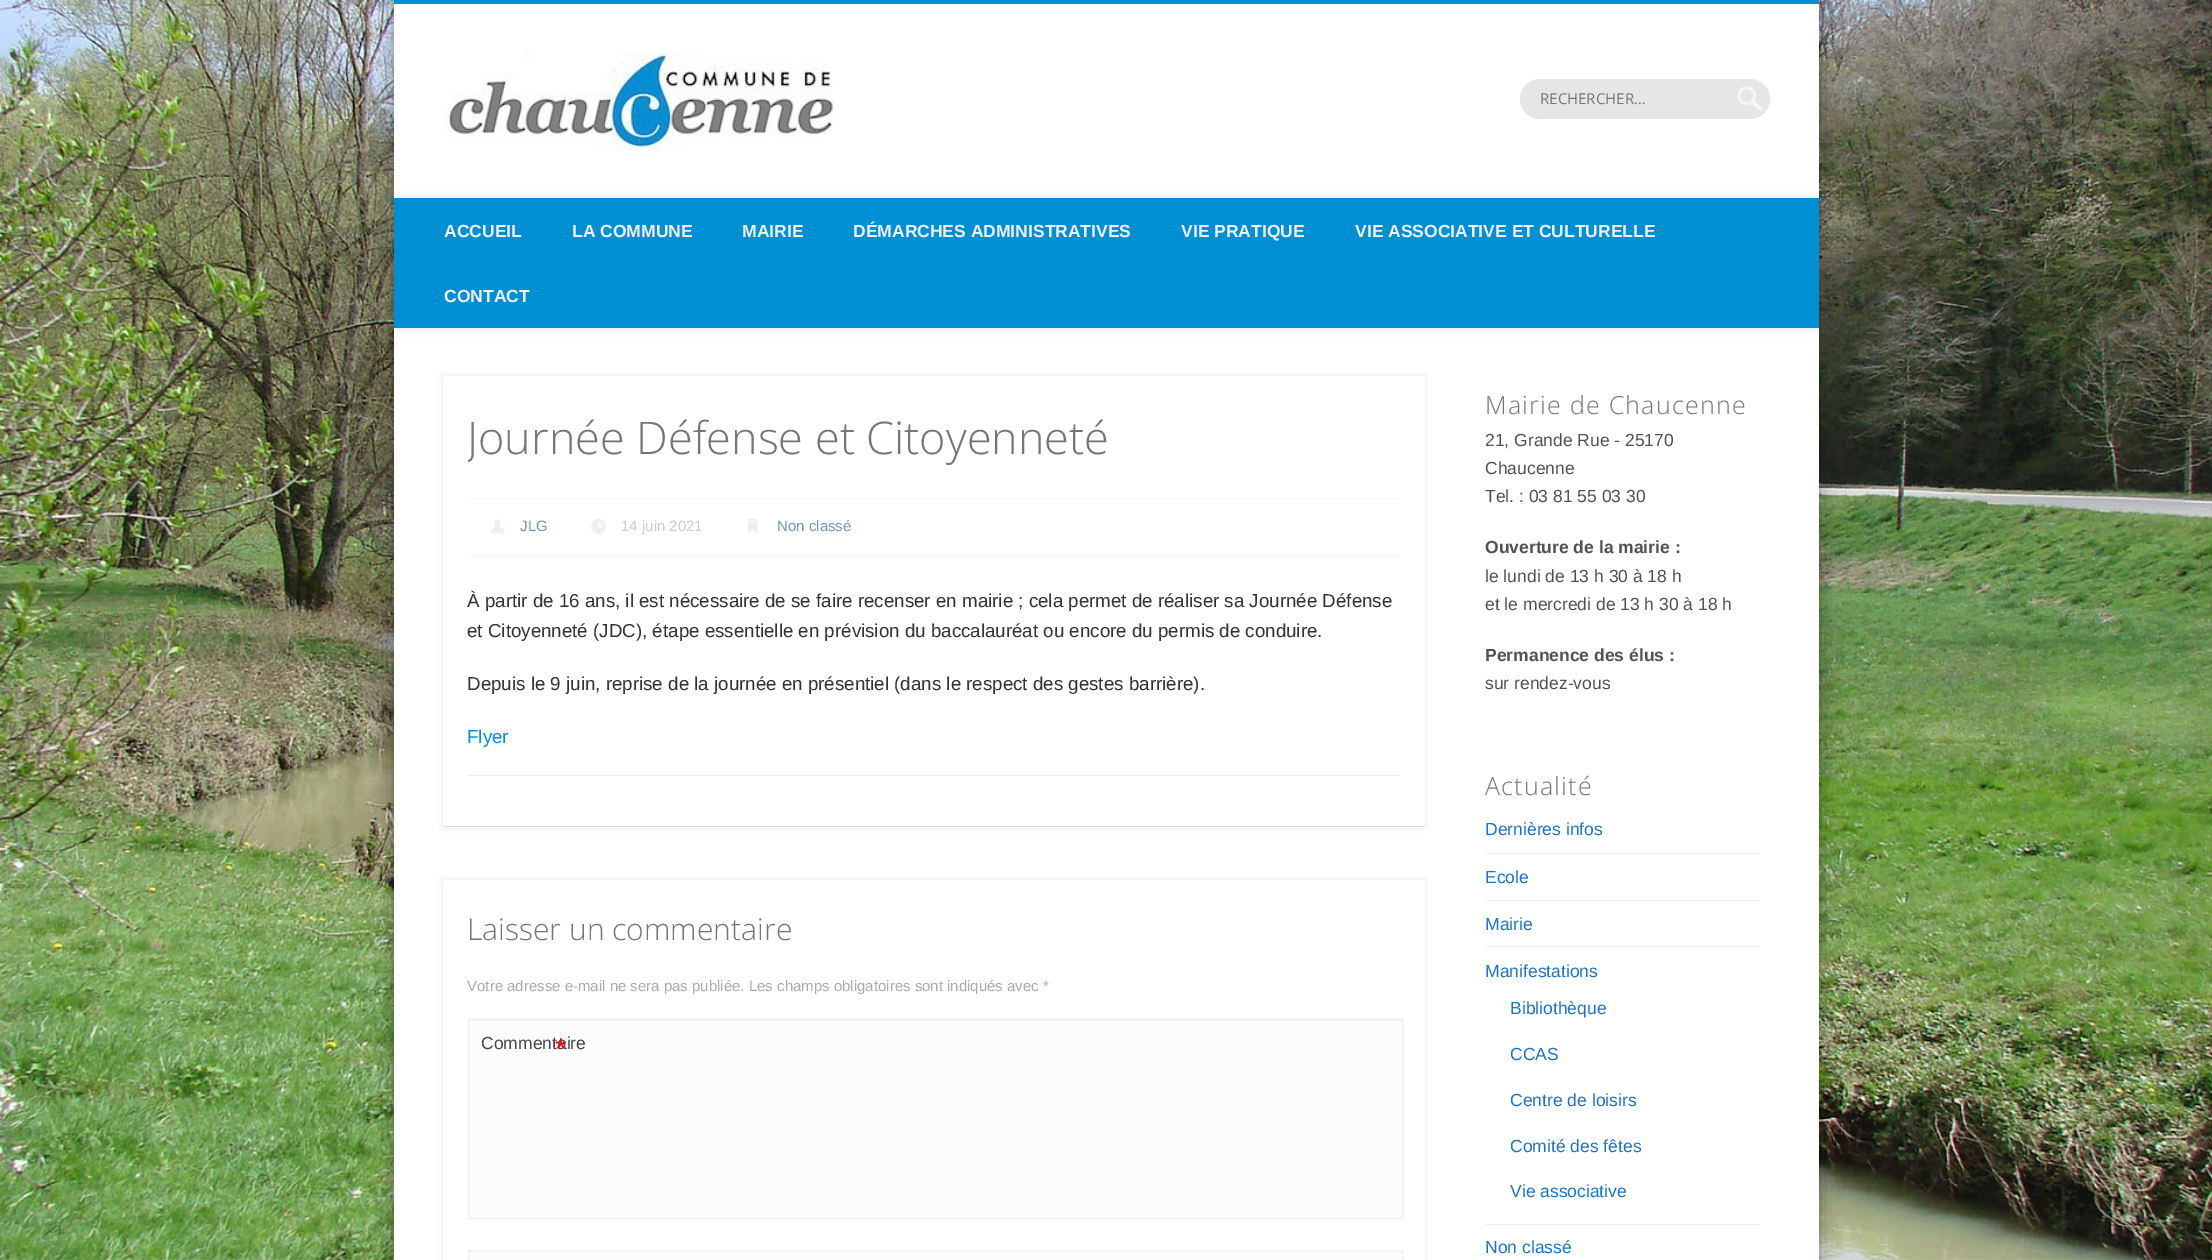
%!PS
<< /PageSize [2212 1260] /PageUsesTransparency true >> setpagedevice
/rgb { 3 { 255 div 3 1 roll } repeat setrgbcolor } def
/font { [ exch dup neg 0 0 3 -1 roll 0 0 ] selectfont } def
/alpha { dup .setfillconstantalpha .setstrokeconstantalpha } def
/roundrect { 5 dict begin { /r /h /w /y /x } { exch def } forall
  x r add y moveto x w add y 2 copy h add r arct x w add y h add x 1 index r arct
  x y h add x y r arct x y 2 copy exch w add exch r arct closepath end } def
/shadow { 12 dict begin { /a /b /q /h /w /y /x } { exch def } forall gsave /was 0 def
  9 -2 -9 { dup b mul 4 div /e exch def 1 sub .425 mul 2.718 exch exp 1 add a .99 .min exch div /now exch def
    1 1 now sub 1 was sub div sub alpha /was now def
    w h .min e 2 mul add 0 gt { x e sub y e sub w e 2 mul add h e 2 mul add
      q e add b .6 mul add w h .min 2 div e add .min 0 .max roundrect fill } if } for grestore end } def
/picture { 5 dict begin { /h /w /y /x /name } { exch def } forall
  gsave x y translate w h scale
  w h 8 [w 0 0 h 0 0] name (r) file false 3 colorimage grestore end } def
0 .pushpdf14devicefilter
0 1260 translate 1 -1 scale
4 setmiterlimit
255 255 255 rgb
0 0 2212 1260 rectfill
(img/1.rgb) 0 0 2212 1260 picture
0 0 0 rgb
394 0 1425 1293 0 11 0.4 shadow
255 255 255 rgb
394 4 1425 1256 rectfill
0 143 211 rgb
394 0 1425 4 rectfill
(img/2.rgb) 444 52 389 98 picture
230 230 230 rgb
1520 79 250 40 20 roundrect fill
(img/3.rgb) 1737 86 26 25 picture
gsave
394 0 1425 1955 rectclip
0 0 0 rgb
394 198 1425 130 0 4.5 0.1 shadow
grestore
0 143 211 rgb
394 198 1425 130 rectfill
0 0 0 rgb
443 376 982 452 0 3 0.1 shadow
[
  [443 376 982 452 255 255 255]
  [443 826 982 1 222 222 222]
  [468 498 932 1 244 244 244]
  [468 555 932 1 244 244 244]
] { aload pop rgb rectfill } forall
(img/4.rgb) 490 519 15 15 picture
(img/5.rgb) 591 518 15 16 picture
(img/6.rgb) 747 518 11 16 picture
238 238 238 rgb
468 775 932 1 rectfill
gsave
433 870 moveto 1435 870 lineto 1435 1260 lineto 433 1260 lineto closepath 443 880 moveto 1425 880 lineto 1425 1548 lineto 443 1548 lineto closepath eoclip newpath
0 0 0 rgb
443 880 982 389 0 3 0.1 shadow
grestore
252 252 252 rgb
468.5 1019.5 moveto 1402.5 1019.5 lineto 1402.5 1218.5 lineto 468.5 1218.5 lineto closepath gsave fill grestore
238 238 238 rgb
stroke
252 252 252 rgb
468.5 1250.5 moveto 1402.5 1250.5 lineto 1402.5 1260.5 lineto 468.5 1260.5 lineto closepath gsave fill grestore
238 238 238 rgb
stroke
[
  [1485 853 275 1 238 238 238]
  [1485 900 275 1 238 238 238]
  [1485 946 275 1 238 238 238]
  [1485 1224 275 1 238 238 238]
] { aload pop rgb rectfill } forall
/OpenSans-Regular 15 font
117 117 117 rgb
1540 104 moveto (RECHERCHER…) show
/LiberationSans-Bold 17.5 font
240 240 240 rgb
[
  [(ACCUEIL) 444 237]
  [(LA COMMUNE) 572 237]
  [(MAIRIE) 742 237]
  [(DÉMARCHES ADMINISTRATIVES) 853 237]
  [(VIE PRATIQUE) 1181 237]
  [(VIE ASSOCIATIVE ET CULTURELLE) 1355 237]
  [(CONTACT) 444 302]
] { aload pop moveto show } forall
gsave
468 401 932 74 rectclip
/OpenSans-Light 45 font
117 117 117 rgb
467 454 moveto (Journée Défense et Citoyenneté) show
grestore
/LiberationSans-Regular 15 font
117 151 185 rgb
520 531 moveto (JLG) show
204 204 204 rgb
621 531 moveto (14 juin 2021) show
117 151 185 rgb
777 531 moveto (Non classé) show
/LiberationSans-Regular 18.75 font
51 51 51 rgb
[
  [(À partir de 16 ans, il est nécessaire de se faire recenser en mairie ; cela permet de réaliser sa Journée Défense) 467 607]
  [(et Citoyenneté \(JDC\), étape essentielle en prévision du baccalauréat ou encore du permis de conduire.) 467 637]
  [(Depuis le 9 juin, reprise de la journée en présentiel \(dans le respect des gestes barrière\).) 467 690]
] { aload pop moveto show } forall
0 143 211 rgb
467 743 moveto (Flyer) show
/OpenSans-Light 30 font
117 117 117 rgb
467 940 moveto (Laisser un commentaire) show
/LiberationSans-Regular 15 font
170 170 170 rgb
467 991 moveto (Votre adresse e-mail ne sera pas publiée. Les champs obligatoires sont indiqués avec *) show
/LiberationSans-Regular 17.5 font
68 68 68 rgb
481 1049 moveto (Commentaire) show
/LiberationSans-Regular 30 font
255 0 0 rgb
555 1059 moveto (*) show
/OpenSans-Light 25 font
117 117 117 rgb
1485 414 moveto 1.25 0 (Mairie de Chaucenne) ashow
/LiberationSans-Regular 17.5 font
81 81 81 rgb
[
  [(21, Grande Rue - 25170) 1485 446]
  [(Chaucenne) 1485 474]
  [(Tel. : 03 81 55 03 30) 1485 502]
] { aload pop moveto show } forall
/LiberationSans-Bold 17.5 font
1485 553 moveto (Ouverture de la mairie :) show
/LiberationSans-Regular 17.5 font
1485 582 moveto (le lundi de 13 h 30 à 18 h) show
1485 610 moveto (et le mercredi de 13 h 30 à 18 h) show
/LiberationSans-Bold 17.5 font
1485 661 moveto (Permanence des élus :) show
/LiberationSans-Regular 17.5 font
1485 689 moveto (sur rendez-vous) show
/OpenSans-Light 25 font
117 117 117 rgb
1485 795 moveto 1.25 0 (Actualité) ashow
/LiberationSans-Regular 17.5 font
30 115 190 rgb
[
  [(Dernières infos) 1485 835]
  [(Ecole) 1485 883]
  [(Mairie) 1485 930]
  [(Manifestations) 1485 977]
  [(Bibliothèque) 1510 1014]
  [(CCAS) 1510 1060]
  [(Centre de loisirs) 1510 1106]
  [(Comité des fêtes) 1510 1152]
  [(Vie associative) 1510 1197]
  [(Non classé) 1485 1253]
] { aload pop moveto show } forall
.poppdf14devicefilter showpage
